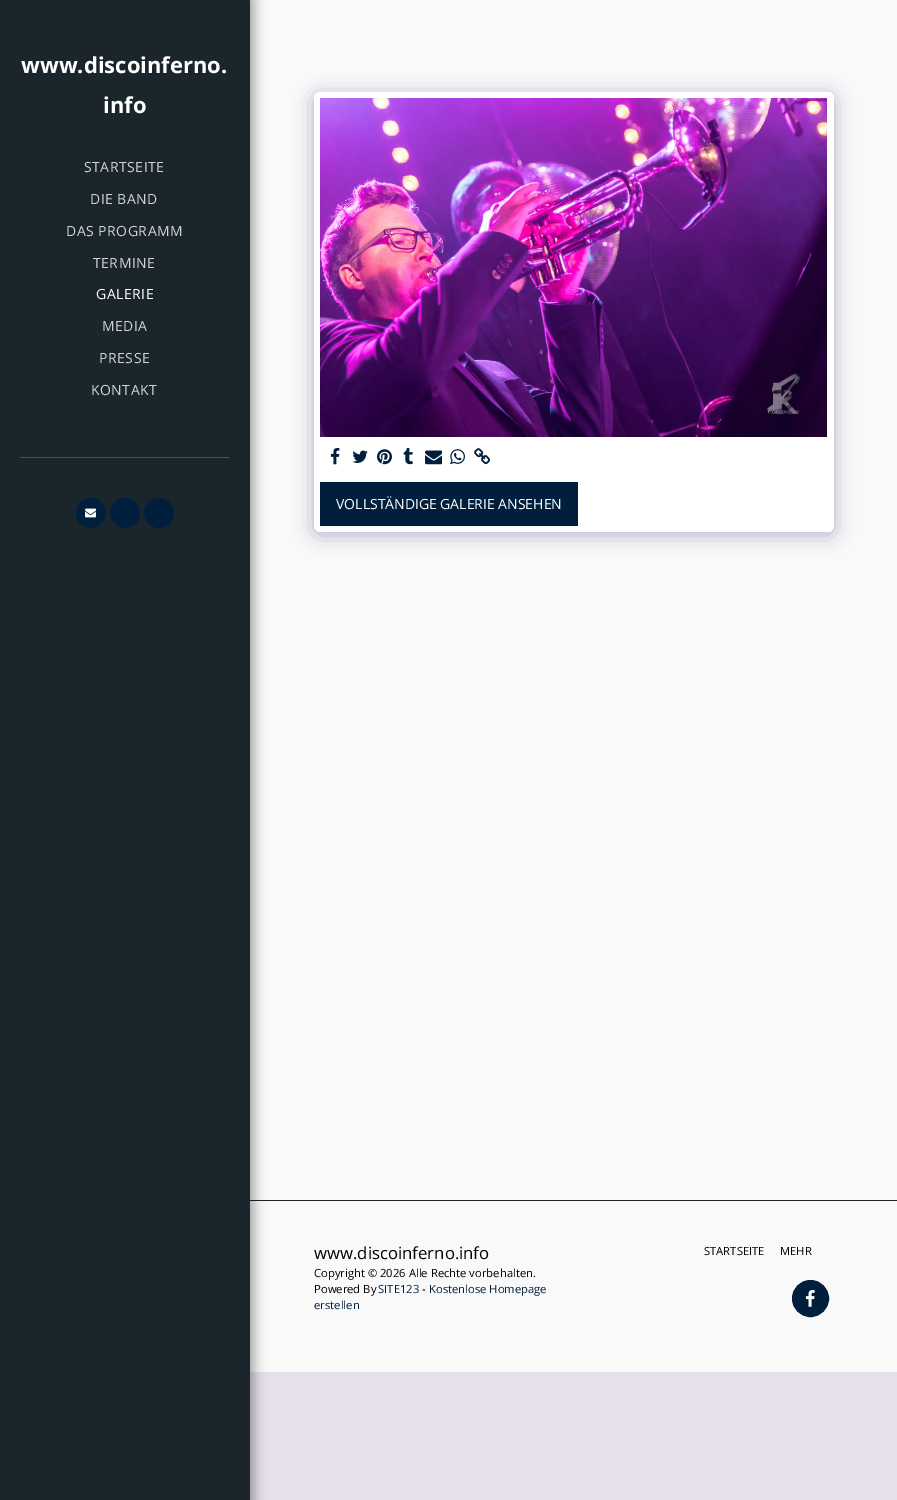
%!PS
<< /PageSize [897 1500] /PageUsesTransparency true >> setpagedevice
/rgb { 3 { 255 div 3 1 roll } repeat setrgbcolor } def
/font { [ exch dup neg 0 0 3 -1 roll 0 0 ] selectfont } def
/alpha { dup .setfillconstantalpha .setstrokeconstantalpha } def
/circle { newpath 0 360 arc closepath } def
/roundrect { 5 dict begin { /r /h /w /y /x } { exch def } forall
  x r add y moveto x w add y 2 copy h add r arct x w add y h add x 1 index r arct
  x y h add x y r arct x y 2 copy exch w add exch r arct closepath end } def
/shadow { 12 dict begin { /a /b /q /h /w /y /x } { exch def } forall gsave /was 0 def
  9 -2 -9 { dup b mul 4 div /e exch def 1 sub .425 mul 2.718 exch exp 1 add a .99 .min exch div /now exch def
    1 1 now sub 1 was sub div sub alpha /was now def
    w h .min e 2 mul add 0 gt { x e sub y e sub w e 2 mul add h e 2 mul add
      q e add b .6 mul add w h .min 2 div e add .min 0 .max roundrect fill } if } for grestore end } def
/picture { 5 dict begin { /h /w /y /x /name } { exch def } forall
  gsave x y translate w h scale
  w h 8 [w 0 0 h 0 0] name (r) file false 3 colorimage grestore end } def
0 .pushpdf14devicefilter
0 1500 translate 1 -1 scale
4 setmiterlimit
230 224 234 rgb
0 0 897 1500 rectfill
[
  [250 0 647 1200 249 249 249]
  [250 1201 647 171 249 249 249]
  [250 1200 647 1 27 38 44]
] { aload pop rgb rectfill } forall
0 0 0 rgb
0 -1 254 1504 0 6 0.35 shadow
27 38 44 rgb
0 0 250 1500 rectfill
73 81 86 rgb
20 457 209 1 rectfill
0 31 61 rgb
91 513 15 circle fill
(img/1.rgb) 85 508 11 10 picture
125 513 15 circle fill
159 513 15 circle fill
77 63 122 rgb
314 95 520 440 6 10 0.4 shadow
255 255 255 rgb
314 92 520 440 6 roundrect fill
(img/2.rgb) 320 98 507 339 picture
(img/3.rgb) 330 448 10 17 picture
(img/4.rgb) 352 450 16 13 picture
(img/5.rgb) 377 449 15 16 picture
(img/6.rgb) 403 448 10 17 picture
(img/7.rgb) 425 450 17 15 picture
(img/8.rgb) 450 449 15 16 picture
(img/9.rgb) 474 448 16 17 picture
0 31 61 rgb
320 482 258 44 rectfill
810.5 1298.5 18 circle gsave fill grestore
stroke
(img/10.rgb) 805 1290 10 17 picture
/OpenSans-Bold 22 font
255 255 255 rgb
21 73 moveto (www.discoinferno.) show
103 113 moveto (info) show
/OpenSans-Regular 14 font
209 212 213 rgb
84 172 moveto 0.5 0 (STARTSEITE) ashow
90 204 moveto 0.5 0 (DIE BAND) ashow
66 236 moveto 0.5 0 (DAS PROGRAMM) ashow
93 268 moveto 0.5 0 (TERMINE) ashow
255 255 255 rgb
96 299 moveto 0.5 0 (GALERIE) ashow
209 212 213 rgb
102 331 moveto 0.5 0 (MEDIA) ashow
99 363 moveto 0.5 0 (PRESSE) ashow
91 395 moveto 0.5 0 (KONTAKT) ashow
255 255 255 rgb
336 509 moveto (VOLLSTÄNDIGE GALERIE ANSEHEN) show
/OpenSans-Regular 16.75 font
0 0 0 rgb
314 1259 moveto (www.discoinferno.info) show
/OpenSans-Regular 11.25 font
314 1277 moveto (Copyright © 2026 Alle Rechte vorbehalten.) show
314 1293 moveto (Powered By) show
0 31 61 rgb
378 1293 moveto (SITE123) show
0 0 0 rgb
422 1293 moveto (-) show
0 31 61 rgb
429 1293 moveto (Kostenlose Homepage) show
314 1309 moveto (erstellen) show
0 0 0 rgb
704 1255 moveto (STARTSEITE) show
780 1255 moveto (MEHR) show
.poppdf14devicefilter showpage
